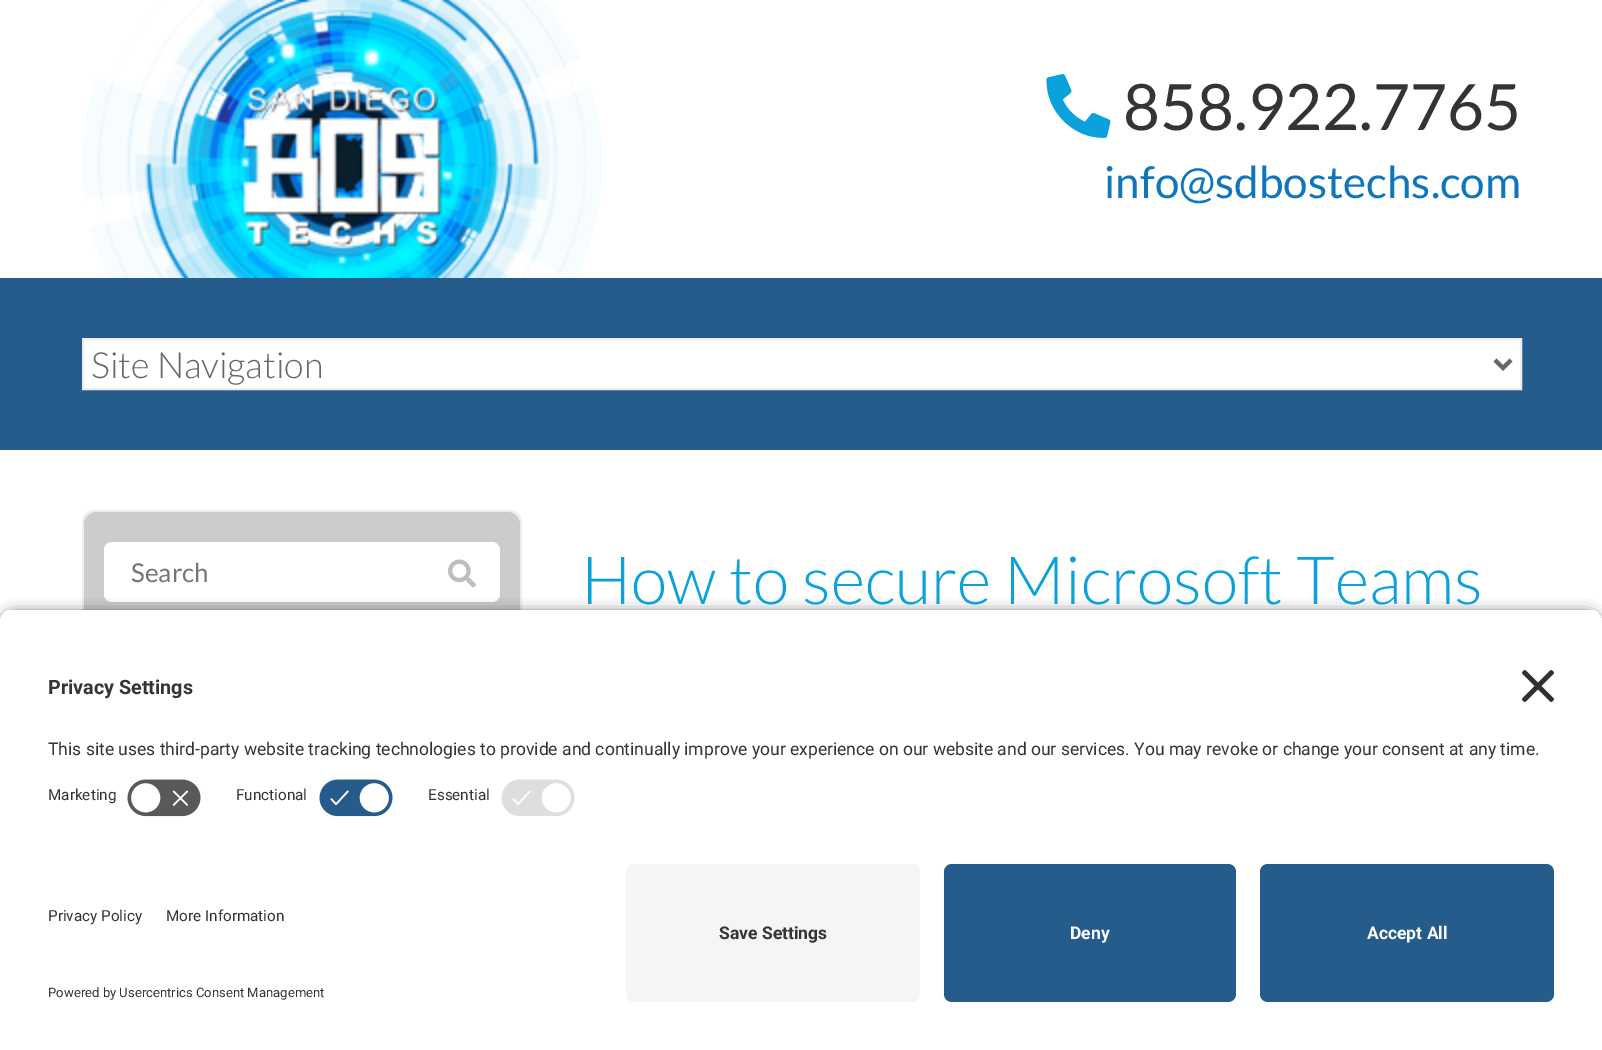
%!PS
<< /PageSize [1602 1050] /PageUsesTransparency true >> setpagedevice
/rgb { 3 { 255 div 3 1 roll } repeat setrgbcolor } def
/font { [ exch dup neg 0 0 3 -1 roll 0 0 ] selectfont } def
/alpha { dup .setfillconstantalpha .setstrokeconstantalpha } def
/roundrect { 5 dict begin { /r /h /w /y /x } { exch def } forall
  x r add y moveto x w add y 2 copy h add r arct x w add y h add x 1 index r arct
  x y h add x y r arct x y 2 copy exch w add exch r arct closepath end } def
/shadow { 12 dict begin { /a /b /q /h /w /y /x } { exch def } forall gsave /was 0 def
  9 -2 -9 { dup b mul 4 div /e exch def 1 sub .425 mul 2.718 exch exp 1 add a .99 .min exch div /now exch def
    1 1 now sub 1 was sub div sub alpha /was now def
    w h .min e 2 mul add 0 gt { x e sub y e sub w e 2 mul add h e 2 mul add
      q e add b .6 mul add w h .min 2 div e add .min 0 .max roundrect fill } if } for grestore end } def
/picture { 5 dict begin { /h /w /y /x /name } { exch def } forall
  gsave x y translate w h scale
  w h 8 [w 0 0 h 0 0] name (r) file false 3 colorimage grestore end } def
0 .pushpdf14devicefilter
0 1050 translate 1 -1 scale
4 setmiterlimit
255 255 255 rgb
0 0 1602 1050 rectfill
(img/1.rgb) 82 0 521 278 picture
(img/2.rgb) 1046 74 65 64 picture
37 92 139 rgb
0 278 1602 172 rectfill
255 255 255 rgb
83 339 moveto 1521 339 lineto 1521 389 lineto 83 389 lineto closepath gsave fill grestore
238 238 238 rgb
2 setlinewidth
stroke
103 103 103 rgb
4 setlinewidth
1495 360 moveto 1503 368 lineto 1511 360 lineto stroke
238 238 238 rgb
2 setlinewidth
83 511 438 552 11 roundrect stroke
204 204 204 rgb
96 512 moveto 508 512 lineto 514.5 512 520 517.5 520 524 curveto 520 622 lineto 84 622 lineto 84 524 lineto 84 517.5 89.5 512 96 512 curveto closepath fill
255 255 255 rgb
104 542 396 60 8 roundrect fill
(img/3.rgb) 448 559 28 29 picture
0 0 0 rgb
0 614 1602 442 16 7 0.8 shadow
gsave
16 608 moveto 1586 608 lineto 1595 608 1602 615 1602 624 curveto 1602 848 lineto 0 848 lineto 0 624 lineto 0 615 7 608 16 608 curveto closepath clip newpath
255 255 255 rgb
0 610 1602 238 rectfill
0 610 1602 158 rectfill
grestore
(img/4.rgb) 1522 670 32 32 picture
(img/5.rgb) 127 779 74 38 picture
(img/6.rgb) 319 779 74 38 picture
(img/7.rgb) 501 779 74 37 picture
255 255 255 rgb
0 848 1602 202 rectfill
245 245 245 rgb
626 864 294 138 8 roundrect fill
37 92 139 rgb
944 864 292 138 8 roundrect fill
1260 864 294 138 8 roundrect fill
/Lato-Regular 64 font
52 52 52 rgb
1123 130 moveto (858.922.7765) show
/Lato-Regular 44 font
16 118 188 rgb
1104 198 moveto (info@sdbostechs.com) show
/Lato-Light 36 font
103 103 103 rgb
91 378 moveto (Site Navigation) show
/Lato-Regular 26 font
117 117 117 rgb
131 582 moveto (Search) show
/Lato-Light 66.6 font
11 161 218 rgb
581 604 moveto (How to secure Microsoft Teams) show
/Roboto-Bold 19.75 font
52 52 52 rgb
48 694 moveto (Privacy Settings) show
/Roboto-Regular 17.5 font
48 755 moveto (This site uses third-party website tracking technologies to provide and continually improve your experience on our website and our services. You may revoke or change your consent at any time.) show
/Roboto-Regular 15.25 font
[
  [(Marketing) 48 800]
  [(Functional) 236 800]
  [(Essential) 428 800]
  [(Privacy Policy) 48 921]
  [(More Information) 166 921]
] { aload pop moveto show } forall
/Roboto-Regular 13.1 font
48 997 moveto (Powered by Usercentrics Consent Management) show
/Roboto-Bold 17.5 font
719 939 moveto (Save Settings) show
250 250 250 rgb
1070 939 moveto (Deny) show
1367 939 moveto (Accept All) show
.poppdf14devicefilter showpage
